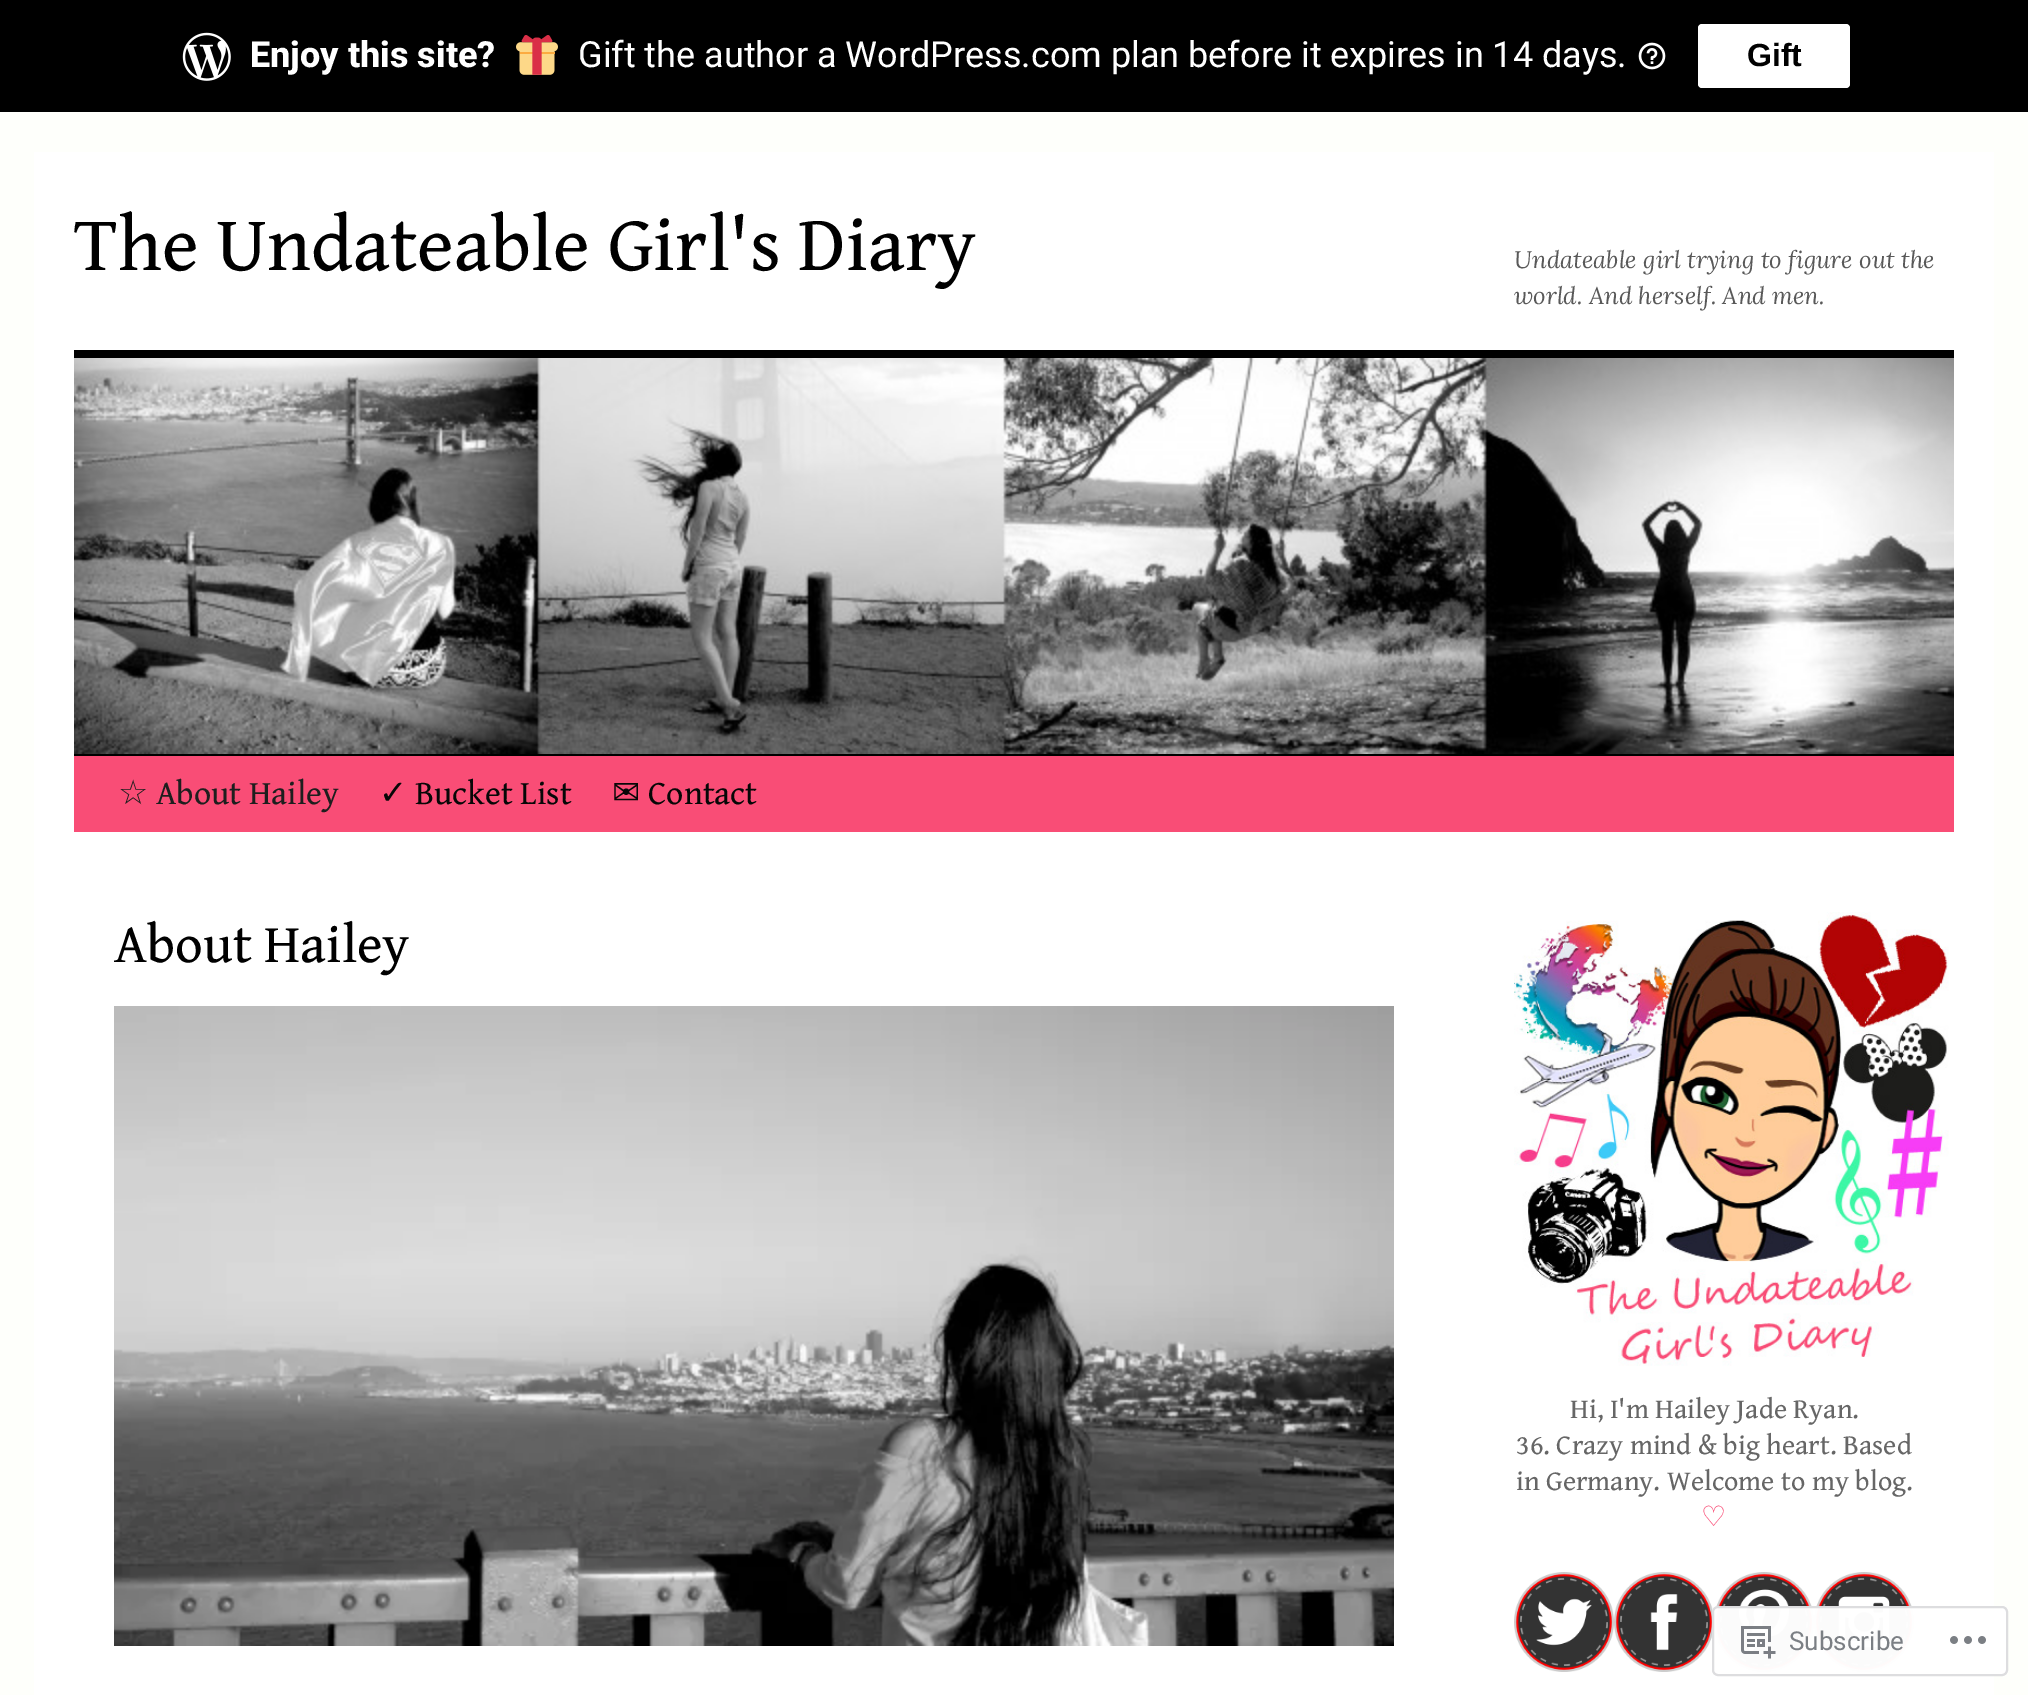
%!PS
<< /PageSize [2028 1695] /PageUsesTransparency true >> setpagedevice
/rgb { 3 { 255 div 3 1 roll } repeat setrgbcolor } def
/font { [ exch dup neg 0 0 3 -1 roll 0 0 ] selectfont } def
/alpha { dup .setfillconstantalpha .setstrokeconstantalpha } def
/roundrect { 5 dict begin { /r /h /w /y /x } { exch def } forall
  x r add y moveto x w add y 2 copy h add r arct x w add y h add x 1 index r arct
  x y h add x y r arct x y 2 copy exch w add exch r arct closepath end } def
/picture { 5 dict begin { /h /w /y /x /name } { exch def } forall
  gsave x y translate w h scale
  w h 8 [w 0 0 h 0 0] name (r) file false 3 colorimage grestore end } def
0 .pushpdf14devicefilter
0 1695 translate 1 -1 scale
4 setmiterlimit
254 255 251 rgb
0 0 2028 1695 rectfill
0 0 0 rgb
0 0 2028 112 rectfill
(img/1.rgb) 182 32 49 49 picture
(img/2.rgb) 516 35 42 40 picture
(img/3.rgb) 1638 42 28 28 picture
255 255 255 rgb
1698 24 152 64 4 roundrect fill
[
  [34 152 1960 1543 255 255 255]
  [74 350 1880 8 0 0 0]
  [74 754 1880 2 0 0 0]
] { aload pop rgb rectfill } forall
(img/4.rgb) 74 358 1880 396 picture
249 77 118 rgb
74 756 1880 76 rectfill
(img/5.rgb) 114 1006 1280 640 picture
(img/6.rgb) 1514 912 435 454 picture
(img/7.rgb) 1514 1572 100 100 picture
(img/8.rgb) 1614 1572 100 100 picture
(img/9.rgb) 1714 1572 100 100 picture
(img/10.rgb) 1814 1572 100 100 picture
0.98 alpha
255 255 255 rgb
1712 1606 296 70 6 roundrect fill
220 220 222 rgb
2 setlinewidth
1713 1607 294 68 5 roundrect stroke
1 alpha
(img/11.rgb) 1741 1626 35 33 picture
(img/12.rgb) 1950 1636 36 8 picture
/Roboto-ExtraBold 36 font
255 255 255 rgb
250 67 moveto (Enjoy this site?) show
/Roboto-Regular 36 font
578 67 moveto (Gift the author a WordPress.com plan before it expires in 14 days.) show
/LiberationSans-Bold 32 font
0 0 0 rgb
1747 66 moveto (Gift) show
/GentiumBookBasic-Regular 78 font
74 270 moveto (The Undateable Girl's Diary) show
/Lora-Italic 24 font
89 89 89 rgb
1514 268 moveto (Undateable girl trying to figure out the) show
1514 304 moveto (world. And herself. And men.) show
/DejaVuSans-Regular 33.75 font
30 30 30 rgb
118 804 moveto (☆) show
/GentiumBookBasic-Regular 33.75 font
156 804 moveto (About Hailey) show
/DejaVuSans-Regular 33.75 font
7 7 7 rgb
379 804 moveto (✓) show
/GentiumBookBasic-Regular 33.75 font
415 804 moveto (Bucket List) show
/DejaVuSans-Regular 33.75 font
612 804 moveto (✉) show
/GentiumBookBasic-Regular 33.75 font
648 804 moveto (Contact) show
/GentiumBookBasic-Regular 54.5 font
0 0 0 rgb
114 962 moveto (About Hailey) show
/GentiumBookBasic-Regular 28.1 font
102 102 102 rgb
[
  [(Hi, I'm Hailey Jade Ryan.) 1570 1418]
  [(36. Crazy mind & big heart. Based) 1516 1454]
  [(in Germany. Welcome to my blog.) 1516 1490]
] { aload pop moveto show } forall
/DejaVuSans-Regular 28.1 font
249 77 118 rgb
1701 1526 moveto (♡) show
/Roboto-Regular 26 font
123 127 132 rgb
1789 1650 moveto (Subscribe) show
.poppdf14devicefilter showpage
